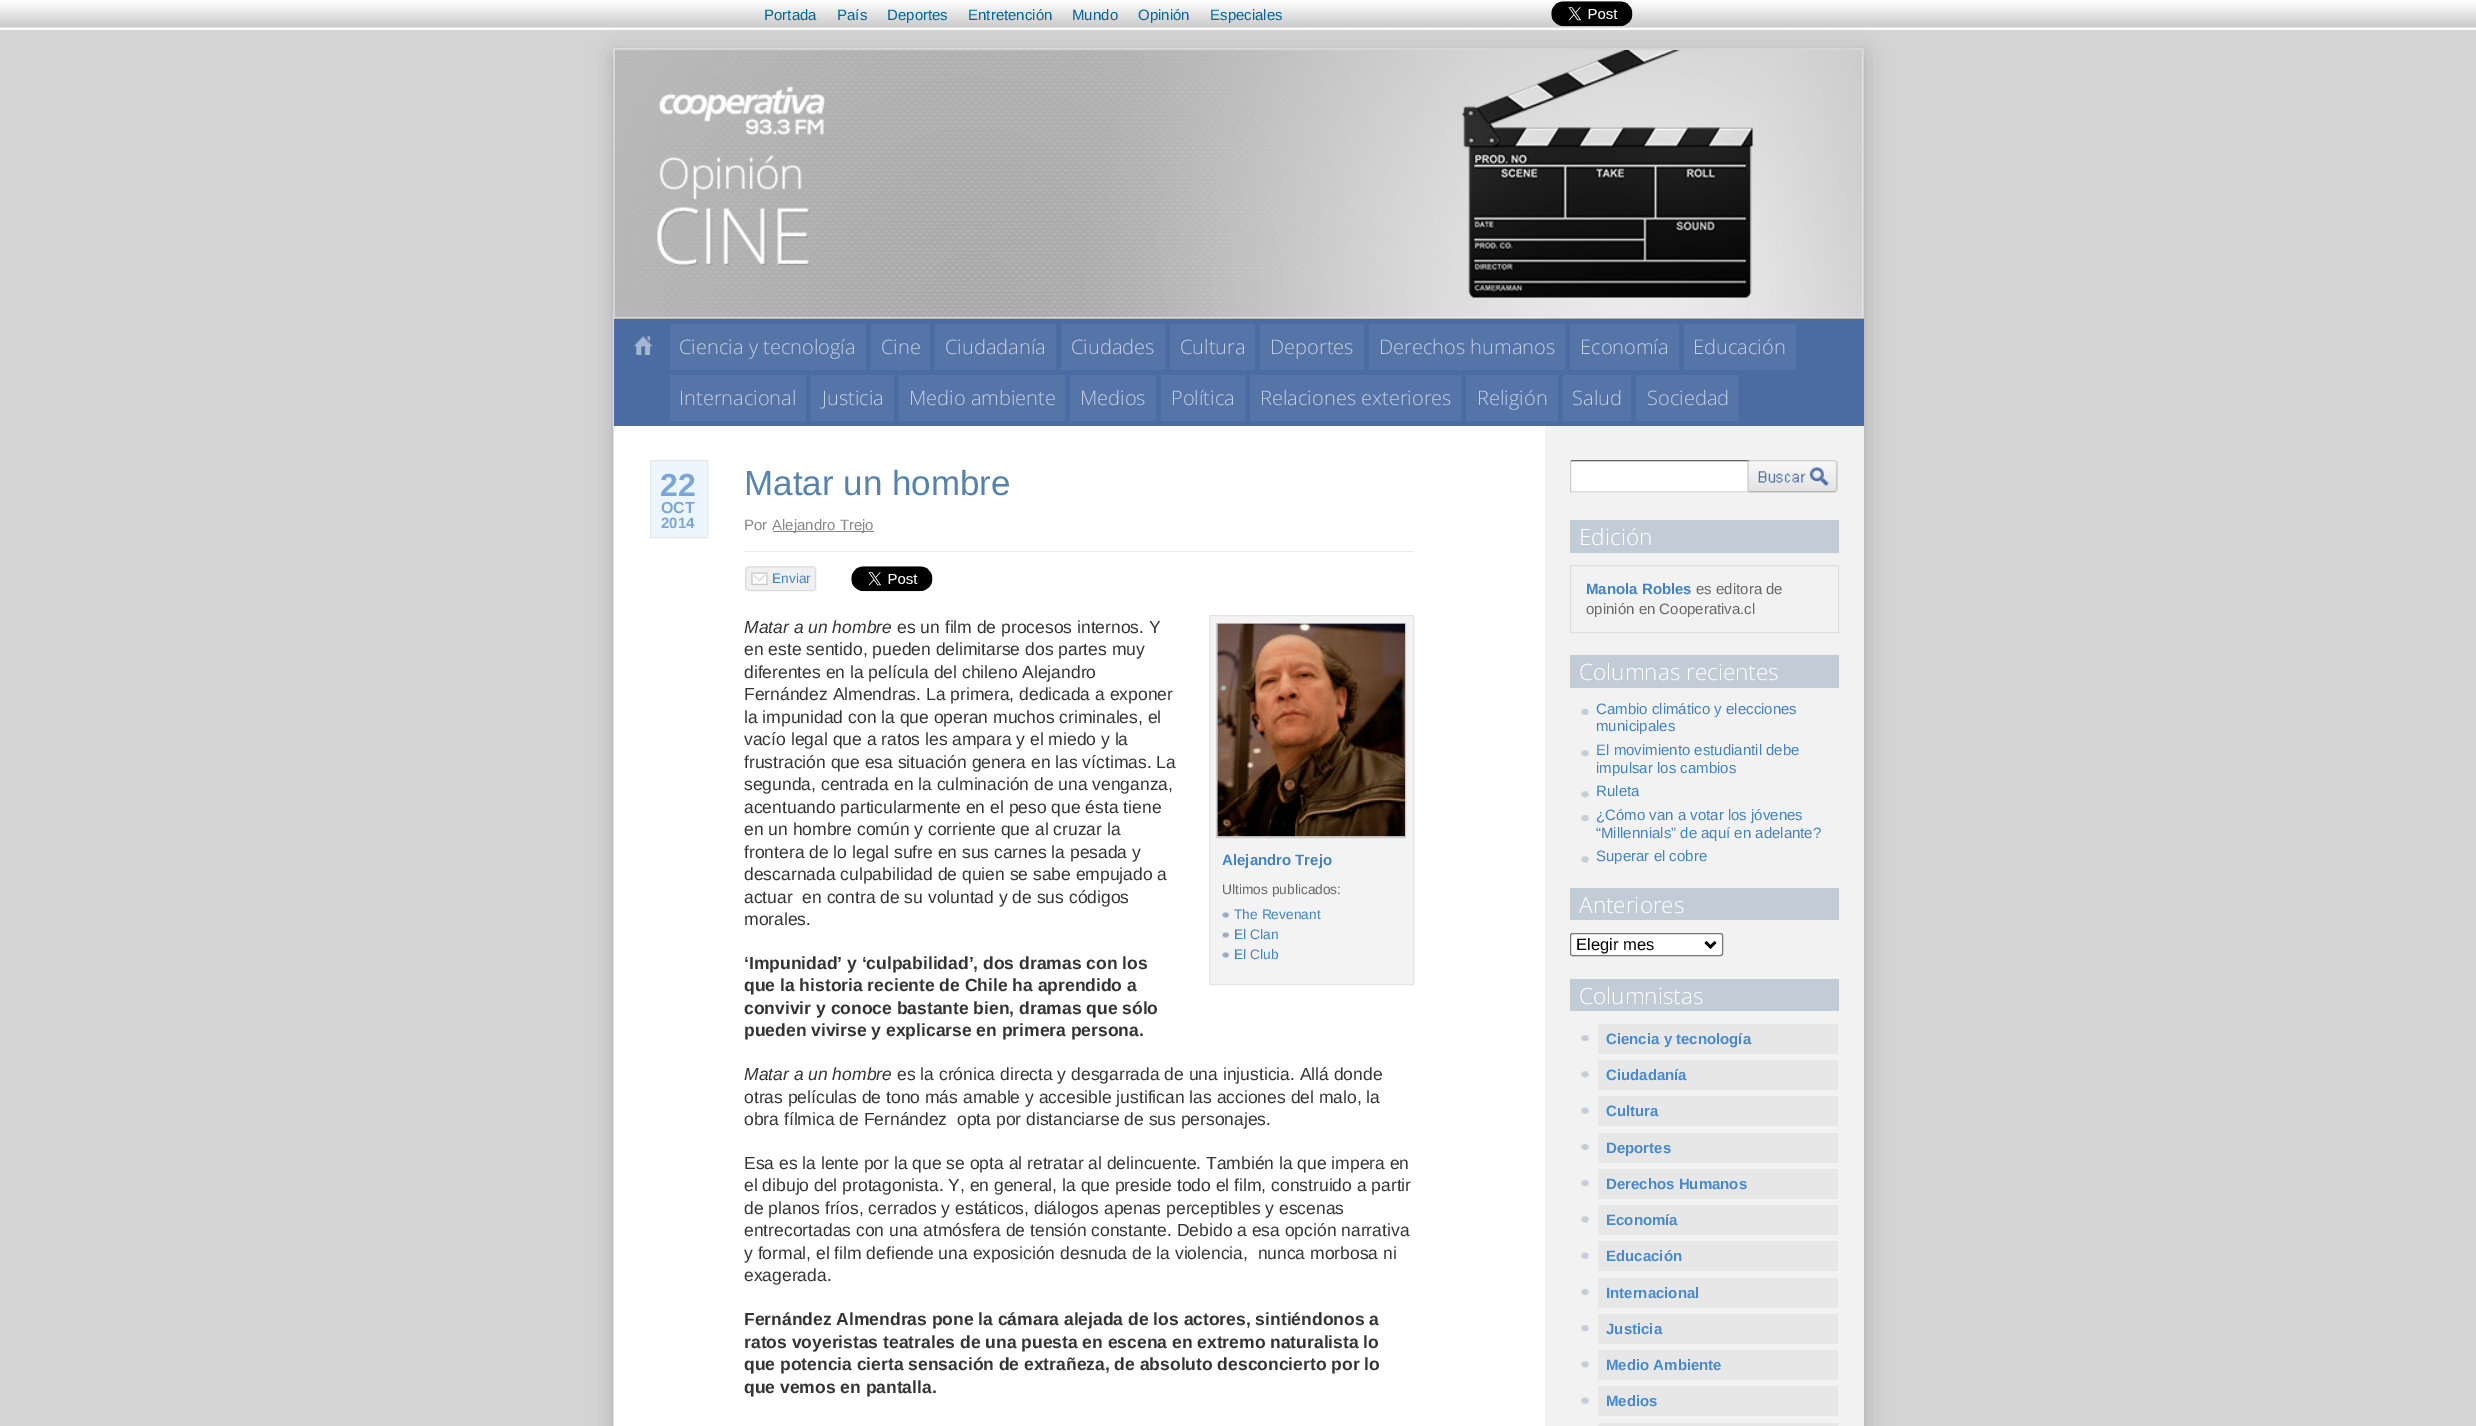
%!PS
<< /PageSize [2476 1426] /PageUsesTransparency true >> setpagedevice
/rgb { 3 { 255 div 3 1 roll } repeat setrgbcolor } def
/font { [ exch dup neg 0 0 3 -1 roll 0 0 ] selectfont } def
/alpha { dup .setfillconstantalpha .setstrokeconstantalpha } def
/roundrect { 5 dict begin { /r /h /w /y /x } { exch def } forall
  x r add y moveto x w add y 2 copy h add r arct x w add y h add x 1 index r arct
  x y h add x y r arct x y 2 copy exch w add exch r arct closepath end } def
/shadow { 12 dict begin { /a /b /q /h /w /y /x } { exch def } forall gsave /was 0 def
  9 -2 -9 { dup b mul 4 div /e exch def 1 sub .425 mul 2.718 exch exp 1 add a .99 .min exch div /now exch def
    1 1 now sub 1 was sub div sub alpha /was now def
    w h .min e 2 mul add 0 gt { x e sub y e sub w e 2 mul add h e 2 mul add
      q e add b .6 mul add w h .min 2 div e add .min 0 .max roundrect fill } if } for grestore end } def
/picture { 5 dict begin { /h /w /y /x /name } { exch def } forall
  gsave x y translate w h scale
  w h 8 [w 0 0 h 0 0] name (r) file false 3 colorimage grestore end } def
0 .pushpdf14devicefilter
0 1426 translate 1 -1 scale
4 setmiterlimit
212 212 212 rgb
0 0 2476 1426 rectfill
(img/1.rgb) 0 0 2476 30 picture
172 172 172 rgb
614 55 1250 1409 0 12.5 1 shadow
(img/2.rgb) 1551 1 82 26 picture
(img/3.rgb) 613 48 1251 1378 picture
[
  [614 49 1250 1 212 212 212]
  [1863 49 1 270 212 212 212]
  [614 318 1250 1 153 153 153]
  [614 49 1 270 212 212 212]
] { aload pop rgb rectfill } forall
(img/4.rgb) 615 50 1248 268 picture
(img/6.rgb) 613 318 1251 142 picture
75 108 163 rgb
614 319 1250 107 rectfill
(img/5.rgb) 633 336 20 19 picture
[
  [670 324 196 46 85 116 168]
  [871 324 59 46 85 116 168]
  [935 324 121 46 85 116 168]
  [1061 324 104 46 85 116 168]
  [1170 324 85 46 85 116 168]
  [1260 324 104 46 85 116 168]
  [1369 324 196 46 85 116 168]
  [1570 324 109 46 85 116 168]
  [1684 324 112 46 85 116 168]
  [670 375 136 46 85 116 168]
  [811 375 83 46 85 116 168]
  [899 375 166 46 85 116 168]
  [1070 375 86 46 85 116 168]
  [1161 375 84 46 85 116 168]
  [1250 375 211 46 85 116 168]
  [1466 375 92 46 85 116 168]
  [1563 375 68 46 85 116 168]
  [1636 375 103 46 85 116 168]
] { aload pop rgb rectfill } forall
(img/7.rgb) 613 460 1251 966 picture
237 246 255 rgb
650.5 460.5 moveto 707.5 460.5 lineto 707.5 537.5 lineto 650.5 537.5 lineto closepath gsave fill grestore
231 231 231 rgb
stroke
136 136 136 rgb
773 531 101 1 rectfill
235 235 235 rgb
745 551 669 1 rectfill
(img/8.rgb) 745 566 72 26 picture
(img/9.rgb) 851 566 82 26 picture
243 243 243 rgb
1209.5 615.5 moveto 1413.5 615.5 lineto 1413.5 984.5 lineto 1209.5 984.5 lineto closepath gsave fill grestore
228 228 228 rgb
stroke
204 204 204 rgb
1216.5 623.5 189 214 rectstroke
(img/10.rgb) 1217 623 188 214 picture
(img/11.rgb) 1222 912 7 6 picture
(img/11.rgb) 1222 932 7 6 picture
(img/11.rgb) 1222 952 7 6 picture
(img/12.rgb) 1570 460 178 33 picture
239 239 239 rgb
1748 460 90 33 rectfill
(img/13.rgb) 1747 460 91 33 picture
194 204 214 rgb
1570 520 269 33 rectfill
222 222 222 rgb
1570.5 565.5 268 67 rectstroke
194 204 214 rgb
1570 655 269 33 rectfill
(img/14.rgb) 1581 708 8 7 picture
(img/15.rgb) 1581 750 8 7 picture
(img/16.rgb) 1581 791 8 7 picture
(img/15.rgb) 1581 815 8 7 picture
(img/16.rgb) 1581 856 8 7 picture
1570 888 269 32 rectfill
255 255 255 rgb
1570.5 933.5 152 22 2 roundrect gsave fill grestore
118 118 118 rgb
stroke
0 0 0 rgb
2.5 setlinewidth
1705.5 942 moveto 1710.5 947 lineto 1715.5 942 lineto stroke
194 204 214 rgb
1570 979 269 32 rectfill
(img/15.rgb) 1581 1035 8 7 picture
231 231 231 rgb
1598 1024 240 30 rectfill
(img/16.rgb) 1581 1071 8 7 picture
1598 1060 240 30 rectfill
(img/17.rgb) 1581 1107 8 7 picture
1598 1096 240 30 rectfill
(img/14.rgb) 1581 1143 8 7 picture
1598 1133 240 30 rectfill
(img/15.rgb) 1581 1180 8 7 picture
1598 1169 240 30 rectfill
(img/16.rgb) 1581 1216 8 7 picture
1598 1205 240 30 rectfill
(img/17.rgb) 1581 1252 8 7 picture
1598 1241 240 30 rectfill
(img/14.rgb) 1581 1288 8 7 picture
1598 1278 240 30 rectfill
(img/15.rgb) 1581 1325 8 7 picture
1598 1314 240 30 rectfill
(img/16.rgb) 1581 1361 8 7 picture
1598 1350 240 30 rectfill
(img/17.rgb) 1581 1397 8 7 picture
1598 1386 240 30 rectfill
1598 1423 240 3 rectfill
/LiberationSans-Regular 15 font
0 102 153 rgb
[
  [(Portada) 764 20]
  [(País) 837 20]
  [(Deportes) 887 20]
  [(Entretención) 968 20]
  [(Mundo) 1072 20]
  [(Opinión) 1138 20]
  [(Especiales) 1210 20]
] { aload pop moveto show } forall
/OpenSans-Light 20 font
197 207 225 rgb
[
  [(Ciencia y tecnología) 679 354]
  [(Cine) 881 354]
  [(Ciudadanía) 945 354]
  [(Ciudades) 1071 354]
  [(Cultura) 1180 354]
  [(Deportes) 1270 354]
  [(Derechos humanos) 1379 354]
  [(Economía) 1580 354]
  [(Educación) 1693 354]
  [(Internacional) 679 405]
  [(Justicia) 822 405]
  [(Medio ambiente) 909 405]
  [(Medios) 1080 405]
  [(Política) 1171 405]
  [(Relaciones exteriores) 1260 405]
  [(Religión) 1477 405]
  [(Salud) 1572 405]
  [(Sociedad) 1647 405]
] { aload pop moveto show } forall
/LiberationSans-Bold 32 font
122 167 214 rgb
660 496 moveto (22) show
/LiberationSans-Bold 16 font
661 513 moveto (OCT) show
/LiberationSans-Bold 15 font
661 528 moveto (2014) show
/LiberationSans-Regular 35 font
86 130 174 rgb
744 495 moveto (Matar un hombre) show
/LiberationSans-Regular 15 font
136 136 136 rgb
744 530 moveto (Por) show
772 530 moveto (Alejandro Trejo) show
/LiberationSans-Regular 13.75 font
66 130 196 rgb
772 583 moveto (Enviar) show
/LiberationSans-Italic 17.5 font
51 51 51 rgb
744 633 moveto (Matar a un hombre) show
/LiberationSans-Regular 17.5 font
[
  [(es un film de procesos internos. Y) 897 633]
  [(en este sentido, pueden delimitarse dos partes muy) 744 655]
  [(diferentes en la película del chileno Alejandro) 744 678]
  [(Fernández Almendras. La primera, dedicada a exponer) 744 700]
  [(la impunidad con la que operan muchos criminales, el) 744 723]
  [(vacío legal que a ratos les ampara y el miedo y la) 744 745]
  [(frustración que esa situación genera en las víctimas. La) 744 768]
  [(segunda, centrada en la culminación de una venganza,) 744 790]
  [(acentuando particularmente en el peso que ésta tiene) 744 813]
  [(en un hombre común y corriente que al cruzar la) 744 835]
  [(frontera de lo legal sufre en sus carnes la pesada y) 744 858]
  [(descarnada culpabilidad de quien se sabe empujado a) 744 880]
  [(actuar  en contra de su voluntad y de sus códigos) 744 903]
  [(morales.) 744 925]
] { aload pop moveto show } forall
/LiberationSans-Bold 15 font
66 130 196 rgb
1222 865 moveto (Alejandro Trejo) show
/LiberationSans-Regular 13.75 font
103 103 103 rgb
1222 894 moveto (Ultimos publicados:) show
66 130 196 rgb
[
  [(The Revenant) 1234 919]
  [(El Clan) 1234 939]
  [(El Club) 1234 959]
] { aload pop moveto show } forall
/LiberationSans-Bold 17.5 font
51 51 51 rgb
[
  [(‘Impunidad’ y ‘culpabilidad’, dos dramas con los) 744 969]
  [(que la historia reciente de Chile ha aprendido a) 744 991]
  [(convivir y conoce bastante bien, dramas que sólo) 744 1014]
  [(pueden vivirse y explicarse en primera persona.) 744 1036]
] { aload pop moveto show } forall
/LiberationSans-Italic 17.5 font
744 1080 moveto (Matar a un hombre) show
/LiberationSans-Regular 17.5 font
[
  [(es la crónica directa y desgarrada de una injusticia. Allá donde) 897 1080]
  [(otras películas de tono más amable y accesible justifican las acciones del malo, la) 744 1103]
  [(obra fílmica de Fernández  opta por distanciarse de sus personajes.) 744 1125]
  [(Esa es la lente por la que se opta al retratar al delincuente. También la que impera en) 744 1169]
  [(el dibujo del protagonista. Y, en general, la que preside todo el film, construido a partir) 744 1191]
  [(de planos fríos, cerrados y estáticos, diálogos apenas perceptibles y escenas) 744 1214]
  [(entrecortadas con una atmósfera de tensión constante. Debido a esa opción narrativa) 744 1236]
  [(y formal, el film defiende una exposición desnuda de la violencia,  nunca morbosa ni) 744 1259]
  [(exagerada.) 744 1281]
] { aload pop moveto show } forall
/LiberationSans-Bold 17.5 font
[
  [(Fernández Almendras pone la cámara alejada de los actores, sintiéndonos a) 744 1325]
  [(ratos voyeristas teatrales de una puesta en escena en extremo naturalista lo) 744 1348]
  [(que potencia cierta sensación de extrañeza, de absoluto desconcierto por lo) 744 1370]
  [(que vemos en pantalla.) 744 1393]
] { aload pop moveto show } forall
/OpenSans-Light 22.5 font
255 255 255 rgb
1579 545 moveto (Edición) show
/LiberationSans-Bold 15 font
66 130 196 rgb
1586 594 moveto (Manola Robles) show
/LiberationSans-Regular 15 font
103 103 103 rgb
1696 594 moveto (es editora de) show
1586 614 moveto (opinión en Cooperativa.cl) show
/OpenSans-Light 22.5 font
255 255 255 rgb
1579 680 moveto (Columnas recientes) show
/LiberationSans-Regular 15 font
66 130 196 rgb
[
  [(Cambio climático y elecciones) 1596 714]
  [(municipales) 1596 731]
  [(El movimiento estudiantil debe) 1596 755]
  [(impulsar los cambios) 1596 773]
  [(Ruleta) 1596 796]
  [(¿Cómo van a votar los jóvenes) 1596 820]
  [(“Millennials” de aquí en adelante?) 1596 838]
  [(Superar el cobre) 1596 861]
] { aload pop moveto show } forall
/OpenSans-Light 22.5 font
255 255 255 rgb
1579 913 moveto (Anteriores) show
/LiberationSans-Regular 16.5 font
0 0 0 rgb
1576 950 moveto (Elegir mes) show
/OpenSans-Light 22.5 font
255 255 255 rgb
1579 1004 moveto (Columnistas) show
/LiberationSans-Bold 15 font
71 137 207 rgb
[
  [(Ciencia y tecnología) 1606 1044]
  [(Ciudadanía) 1606 1080]
  [(Cultura) 1606 1116]
  [(Deportes) 1606 1153]
  [(Derechos Humanos) 1606 1189]
  [(Economía) 1606 1225]
  [(Educación) 1606 1261]
  [(Internacional) 1606 1298]
  [(Justicia) 1606 1334]
  [(Medio Ambiente) 1606 1370]
  [(Medios) 1606 1406]
] { aload pop moveto show } forall
.poppdf14devicefilter showpage
